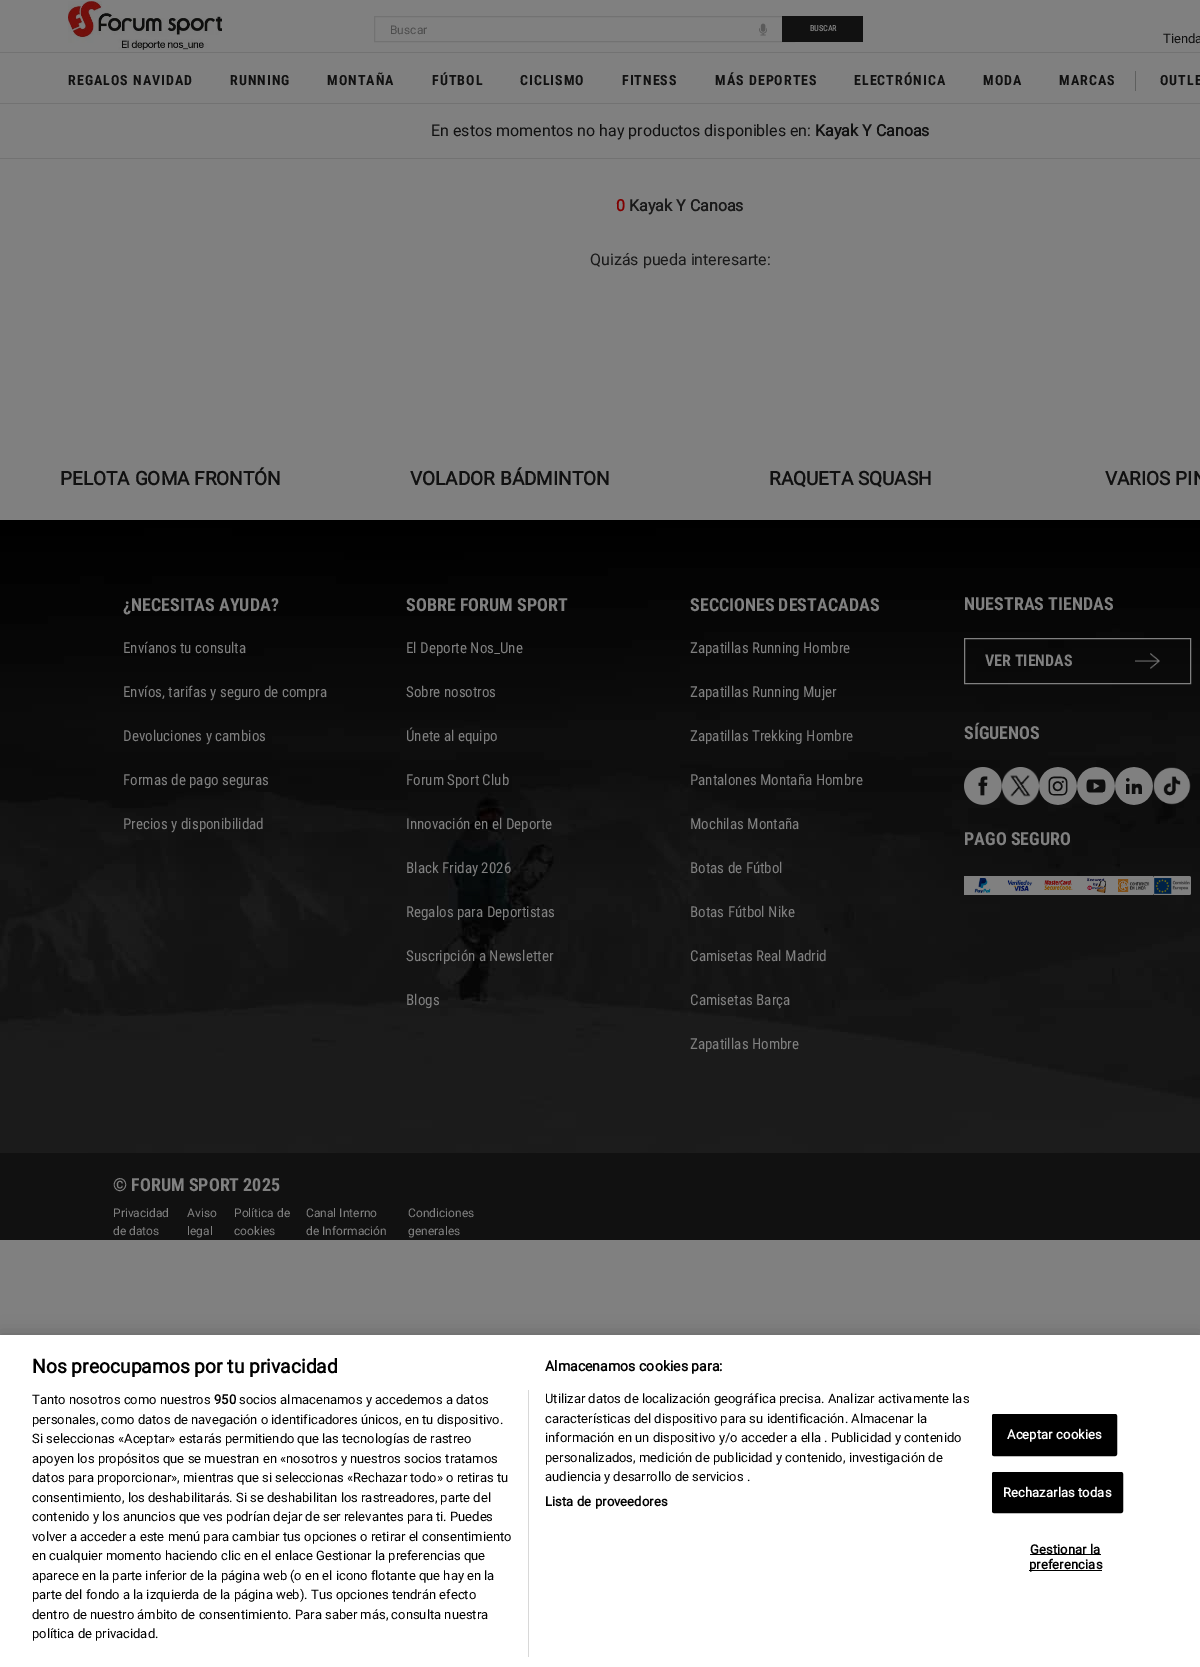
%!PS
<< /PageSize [1200 1667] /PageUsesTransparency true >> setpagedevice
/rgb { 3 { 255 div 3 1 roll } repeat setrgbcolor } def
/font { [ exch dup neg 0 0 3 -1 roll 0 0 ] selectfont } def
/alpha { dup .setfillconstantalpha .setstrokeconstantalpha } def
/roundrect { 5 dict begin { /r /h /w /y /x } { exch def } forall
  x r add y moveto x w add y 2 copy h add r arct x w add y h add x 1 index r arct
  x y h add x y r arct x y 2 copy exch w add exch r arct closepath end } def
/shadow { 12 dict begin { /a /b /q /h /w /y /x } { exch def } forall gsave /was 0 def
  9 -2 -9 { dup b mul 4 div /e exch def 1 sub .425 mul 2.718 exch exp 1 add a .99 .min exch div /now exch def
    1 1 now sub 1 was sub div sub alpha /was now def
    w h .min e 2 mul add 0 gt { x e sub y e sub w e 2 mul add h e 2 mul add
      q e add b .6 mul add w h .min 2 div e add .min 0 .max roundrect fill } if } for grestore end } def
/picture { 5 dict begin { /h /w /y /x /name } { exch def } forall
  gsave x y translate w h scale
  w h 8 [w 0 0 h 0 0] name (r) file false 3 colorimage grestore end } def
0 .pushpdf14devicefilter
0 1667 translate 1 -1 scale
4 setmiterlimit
128 128 128 rgb
0 0 1200 1667 rectfill
114 114 114 rgb
0 52 1200 1 rectfill
(img/1.rgb) 68 1 154 49 picture
374.5 16.5 420 25 rectstroke
(img/2.rgb) 759 23 8 13 picture
[
  [782 16 81 26 17 17 17]
  [0 103 1200 1 114 114 114]
  [1135 71 1 20 94 95 94]
  [0 158 1200 1 114 114 114]
  [0 1153 1200 87 17 17 17]
] { aload pop rgb rectfill } forall
(img/3.rgb) 0 520 1200 633 picture
128 128 128 rgb
964.5 638.5 226 45 rectstroke
(img/4.rgb) 1135 653 25 16 picture
(img/5.rgb) 964 767 38 38 picture
(img/6.rgb) 1002 767 37 38 picture
(img/7.rgb) 1039 767 38 38 picture
(img/8.rgb) 1077 767 38 38 picture
(img/9.rgb) 1115 767 38 38 picture
(img/10.rgb) 1153 767 38 38 picture
(img/11.rgb) 964 876 38 19 picture
(img/12.rgb) 1002 876 37 19 picture
(img/13.rgb) 1039 876 38 19 picture
(img/14.rgb) 1077 876 38 19 picture
(img/15.rgb) 1115 876 38 19 picture
(img/16.rgb) 1153 876 38 19 picture
0 0 0 rgb
0 1335 1200 332 0 9 0.2 shadow
255 255 255 rgb
0 1335 1200 332 rectfill
216 216 216 rgb
528 1390 1 267 rectfill
0 0 0 rgb
992.5 1414.5 124 41 1.5 roundrect gsave fill grestore
stroke
992.5 1472.5 130 40 1.5 roundrect gsave fill grestore
stroke
1030 1554 71 1 rectfill
1029 1570 73 1 rectfill
/Roboto-Regular 12 font
77 77 77 rgb
390 34 moveto (Buscar) show
/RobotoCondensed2-Bold 8 font
128 128 128 rgb
810 31 moveto (BUSCAR) show
/Roboto-Regular 13 font
17 17 17 rgb
1163 43 moveto (Tienda) show
/RobotoCondensed-Bold 14 font
68 85 moveto 1 0 (REGALOS NAVIDAD) ashow
230 85 moveto 1 0 (RUNNING) ashow
327 85 moveto 1 0 (MONTAÑA) ashow
432 85 moveto 1 0 (FÚTBOL) ashow
520 85 moveto 1 0 (CICLISMO) ashow
622 85 moveto 1 0 (FITNESS) ashow
715 85 moveto 1 0 (MÁS DEPORTES) ashow
854 85 moveto 1 0 (ELECTRÓNICA) ashow
983 85 moveto 1 0 (MODA) ashow
1059 85 moveto 1 0 (MARCAS) ashow
1160 85 moveto 1 0 (OUTLE) ashow
/Roboto-Regular 16 font
431 136 moveto (En estos momentos no hay productos disponibles en:) show
/Roboto-Bold 16 font
815 136 moveto (Kayak Y Canoas) show
128 0 0 rgb
616 211 moveto (0) show
26 26 26 rgb
629 211 moveto (Kayak Y Canoas) show
/Roboto-Regular 16 font
590 265 moveto (Quizás pueda interesarte:) show
/Roboto-Bold 19 font
17 17 17 rgb
[
  [(PELOTA GOMA FRONTÓN) 60 485]
  [(VOLADOR BÁDMINTON) 410 485]
  [(RAQUETA SQUASH) 769 485]
  [(VARIOS PIN) 1105 485]
] { aload pop moveto show } forall
/RobotoCondensed-Bold 18 font
128 128 128 rgb
123 611 moveto (¿NECESITAS AYUDA?) show
/RobotoCondensed-Regular 15 font
[
  [(Envíanos tu consulta) 123 653]
  [(Envíos, tarifas y seguro de compra) 123 697]
  [(Devoluciones y cambios) 123 741]
  [(Formas de pago seguras) 123 785]
  [(Precios y disponibilidad) 123 829]
] { aload pop moveto show } forall
/RobotoCondensed-Bold 18 font
406 611 moveto (SOBRE FORUM SPORT) show
/RobotoCondensed-Regular 15 font
[
  [(El Deporte Nos_Une) 406 653]
  [(Sobre nosotros) 406 697]
  [(Únete al equipo) 406 741]
  [(Forum Sport Club) 406 785]
  [(Innovación en el Deporte) 406 829]
  [(Black Friday 2026) 406 873]
  [(Regalos para Deportistas) 406 917]
  [(Suscripción a Newsletter) 406 961]
  [(Blogs) 406 1005]
] { aload pop moveto show } forall
/RobotoCondensed-Bold 18 font
690 611 moveto (SECCIONES DESTACADAS) show
/RobotoCondensed-Regular 15 font
[
  [(Zapatillas Running Hombre) 690 653]
  [(Zapatillas Running Mujer) 690 697]
  [(Zapatillas Trekking Hombre) 690 741]
  [(Pantalones Montaña Hombre) 690 785]
  [(Mochilas Montaña) 690 829]
  [(Botas de Fútbol) 690 873]
  [(Botas Fútbol Nike) 690 917]
  [(Camisetas Real Madrid) 690 961]
  [(Camisetas Barça) 690 1005]
  [(Zapatillas Hombre) 690 1049]
] { aload pop moveto show } forall
/RobotoCondensed-Bold 18 font
964 610 moveto (NUESTRAS TIENDAS) show
/RobotoCondensed-Bold 16 font
985 666 moveto (VER TIENDAS) show
/RobotoCondensed-Bold 18 font
[
  [(SÍGUENOS) 964 739]
  [(PAGO SEGURO) 964 845]
  [(© FORUM SPORT 2025) 113 1191]
] { aload pop moveto show } forall
/Roboto-Regular 12 font
[
  [(Privacidad) 113 1217]
  [(de datos) 113 1235]
  [(Aviso) 187 1217]
  [(legal) 187 1235]
  [(Política de) 234 1217]
  [(cookies) 234 1235]
  [(Canal Interno) 306 1217]
  [(de Información) 306 1235]
  [(Condiciones) 408 1217]
  [(generales) 408 1235]
] { aload pop moveto show } forall
/Roboto-Bold 19.25 font
0 0 0 rgb
32 1373 moveto (Nos preocupamos por tu privacidad) show
/Roboto-Bold 14.1 font
545 1371 moveto (Almacenamos cookies para:) show
/Roboto-Regular 13 font
[
  [(Utilizar datos de localización geográfica precisa. Analizar activamente las) 545 1403]
  [(características del dispositivo para su identificación. Almacenar la) 545 1423]
  [(información en un dispositivo y/o acceder a ella . Publicidad y contenido) 545 1442]
  [(personalizados, medición de publicidad y contenido, investigación de) 545 1462]
  [(audiencia y desarrollo de servicios .) 545 1481]
] { aload pop moveto show } forall
/Roboto-Bold 13 font
545 1506 moveto 0.1 0 (Lista de proveedores) ashow
/Roboto-Regular 13 font
32 1404 moveto (Tanto nosotros como nuestros) show
/Roboto-Bold 13 font
214 1404 moveto (950) show
/Roboto-Regular 13 font
[
  [(socios almacenamos y accedemos a datos) 239 1404]
  [(personales, como datos de navegación o identificadores únicos, en tu dispositivo.) 32 1424]
  [(Si seleccionas «Aceptar» estarás permitiendo que las tecnologías de rastreo) 32 1443]
  [(apoyen los propósitos que se muestran en «nosotros y nuestros socios tratamos) 32 1463]
  [(datos para proporcionar», mientras que si seleccionas «Rechazar todo» o retiras tu) 32 1482]
  [(consentimiento, los deshabilitarás. Si se deshabilitan los rastreadores, parte del) 32 1502]
  [(contenido y los anuncios que ves podrían dejar de ser relevantes para ti. Puedes) 32 1521]
  [(volver a acceder a este menú para cambiar tus opciones o retirar el consentimiento) 32 1541]
  [(en cualquier momento haciendo clic en el enlace Gestionar la preferencias que) 32 1560]
  [(aparece en la parte inferior de la página web \(o en el icono flotante que hay en la) 32 1580]
  [(parte del fondo a la izquierda de la página web\). Tus opciones tendrán efecto) 32 1599]
  [(dentro de nuestro ámbito de consentimiento. Para saber más, consulta nuestra) 32 1619]
  [(política de privacidad.) 32 1638]
] { aload pop moveto show } forall
/Roboto-Bold 13 font
255 255 255 rgb
1007 1439 moveto 0.1 0 (Aceptar cookies) ashow
1003 1497 moveto 0.1 0 (Rechazarlas todas) ashow
0 0 0 rgb
1030 1554 moveto 0.1 0 (Gestionar la) ashow
1029 1569 moveto 0.1 0 (preferencias) ashow
.poppdf14devicefilter showpage
